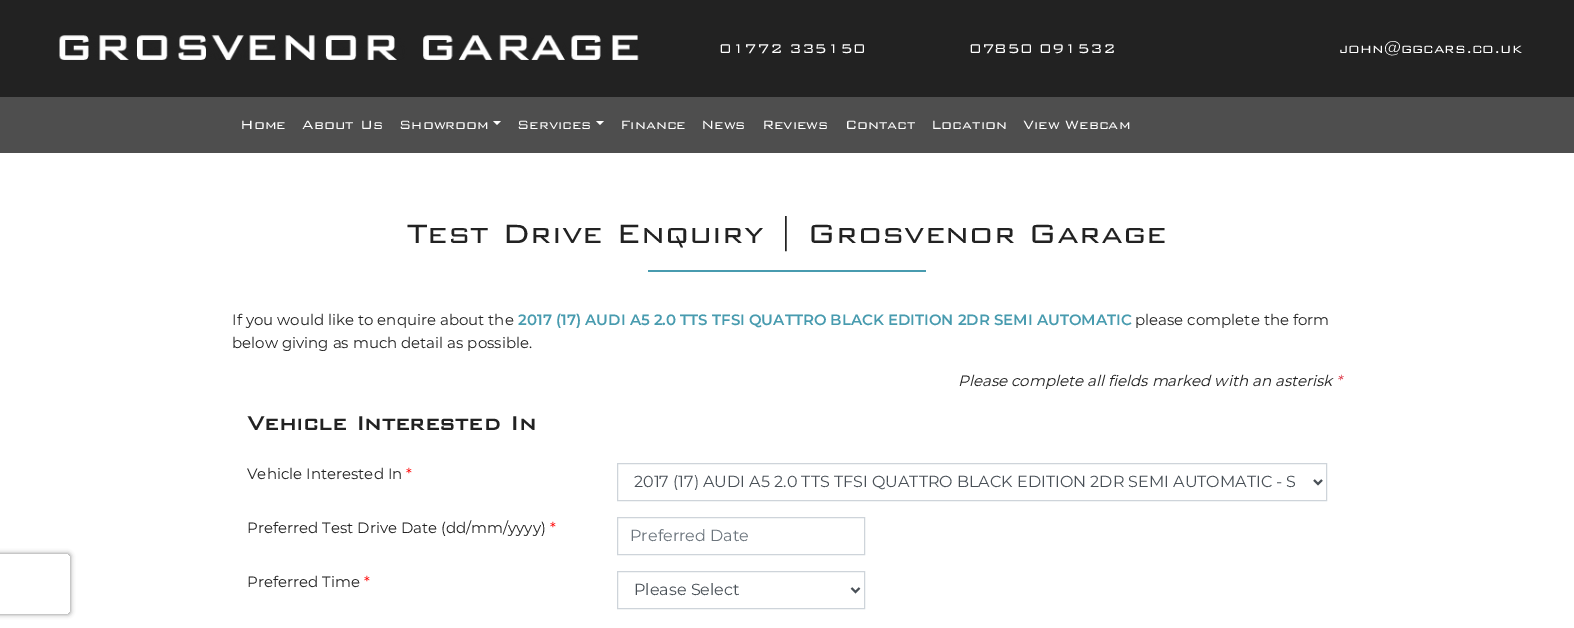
%!PS
<< /PageSize [1574 628] /PageUsesTransparency true >> setpagedevice
/rgb { 3 { 255 div 3 1 roll } repeat setrgbcolor } def
/font { [ exch dup neg 0 0 3 -1 roll 0 0 ] selectfont } def
/alpha { dup .setfillconstantalpha .setstrokeconstantalpha } def
/roundrect { 5 dict begin { /r /h /w /y /x } { exch def } forall
  x r add y moveto x w add y 2 copy h add r arct x w add y h add x 1 index r arct
  x y h add x y r arct x y 2 copy exch w add exch r arct closepath end } def
/shadow { 12 dict begin { /a /b /q /h /w /y /x } { exch def } forall gsave /was 0 def
  9 -2 -9 { dup b mul 4 div /e exch def 1 sub .425 mul 2.718 exch exp 1 add a .99 .min exch div /now exch def
    1 1 now sub 1 was sub div sub alpha /was now def
    w h .min e 2 mul add 0 gt { x e sub y e sub w e 2 mul add h e 2 mul add
      q e add b .6 mul add w h .min 2 div e add .min 0 .max roundrect fill } if } for grestore end } def
/picture { 5 dict begin { /h /w /y /x /name } { exch def } forall
  gsave x y translate w h scale
  w h 8 [w 0 0 h 0 0] name (r) file false 3 colorimage grestore end } def
0 .pushpdf14devicefilter
0 628 translate 1 -1 scale
4 setmiterlimit
255 255 255 rgb
0 0 1574 628 rectfill
34 34 34 rgb
0 0 1574 97 rectfill
(img/1.rgb) 59 35 580 25 picture
78 78 78 rgb
0 97 1574 56 rectfill
255 255 255 rgb
493 121 moveto 501 121 lineto 497 125 lineto closepath fill
596 121 moveto 604 121 lineto 600 125 lineto closepath fill
72 155 175 rgb
648 270 278 2 rectfill
206 212 218 rgb
617.5 463.5 709 37 rectstroke
73 80 87 rgb
2 setlinewidth
1314 480 moveto 1318 484 lineto 1322 480 lineto stroke
206 212 218 rgb
1 setlinewidth
617.5 517.5 247 37 rectstroke
gsave
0 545 moveto 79 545 lineto 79 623 lineto 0 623 lineto closepath -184 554 moveto 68 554 lineto 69 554 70 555 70 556 curveto 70 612 lineto 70 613 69 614 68 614 curveto -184 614 lineto -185 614 -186 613 -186 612 curveto -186 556 lineto -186 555 -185 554 -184 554 curveto closepath eoclip newpath
128 128 128 rgb
-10 554 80 60 2 2.5 1 shadow
grestore
617.5 571.5 247 37 rectstroke
73 80 87 rgb
2 setlinewidth
851.5 588 moveto 855.5 592 lineto 859.5 588 lineto stroke
/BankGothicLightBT-Regular 17 font
255 255 255 rgb
[
  [(01772 335150) 719 53]
  [(07850 091532) 969 53]
  [(john@ggcars.co.uk) 1339 53]
] { aload pop moveto show } forall
/BankGothicLightBT-Regular 16 font
[
  [(Home) 240 129]
  [(About Us) 302 129]
  [(Showroom) 399 129]
  [(Services) 517 129]
  [(Finance) 620 129]
  [(News) 701 129]
  [(Reviews) 762 129]
  [(Contact) 845 129]
  [(Location) 931 129]
  [(View Webcam) 1023 129]
] { aload pop moveto show } forall
/BankGothicLightBT-Regular 35.2 font
34 34 34 rgb
407 243 moveto (Test Drive Enquiry | Grosvenor Garage) show
/Montserrat-Regular 15 font
232 325 moveto (If you would like to enquire about the) show
/Montserrat-SemiBold 15 font
72 155 175 rgb
518 325 moveto (2017 \(17\) AUDI A5 2.0 TTS TFSI QUATTRO BLACK EDITION 2DR SEMI AUTOMATIC) show
/Montserrat-Regular 15 font
34 34 34 rgb
1135 325 moveto (please complete the form) show
232 348 moveto (below giving as much detail as possible.) show
/Montserrat-Italic 15 font
958 386 moveto (Please complete all fields marked with an asterisk) show
220 53 69 rgb
1336 386 moveto (*) show
/BankGothicLightBT-Bold 25 font
34 34 34 rgb
247 430 moveto (Vehicle Interested In) show
/Montserrat-Regular 15 font
247 479 moveto (Vehicle Interested In) show
255 0 0 rgb
406 479 moveto (*) show
/Montserrat-Regular 16 font
73 80 87 rgb
634 487 moveto (2017 \(17\) AUDI A5 2.0 TTS TFSI QUATTRO BLACK EDITION 2DR SEMI AUTOMATIC - S) show
/Montserrat-Regular 15 font
34 34 34 rgb
247 533 moveto (Preferred Test Drive Date \(dd/mm/yyyy\)) show
255 0 0 rgb
550 533 moveto (*) show
/Montserrat-Regular 16 font
108 117 125 rgb
630 541 moveto (Preferred Date) show
/Montserrat-Regular 15 font
34 34 34 rgb
247 587 moveto (Preferred Time) show
255 0 0 rgb
364 587 moveto (*) show
/Montserrat-Regular 16 font
73 80 87 rgb
634 595 moveto (Please Select) show
.poppdf14devicefilter showpage
